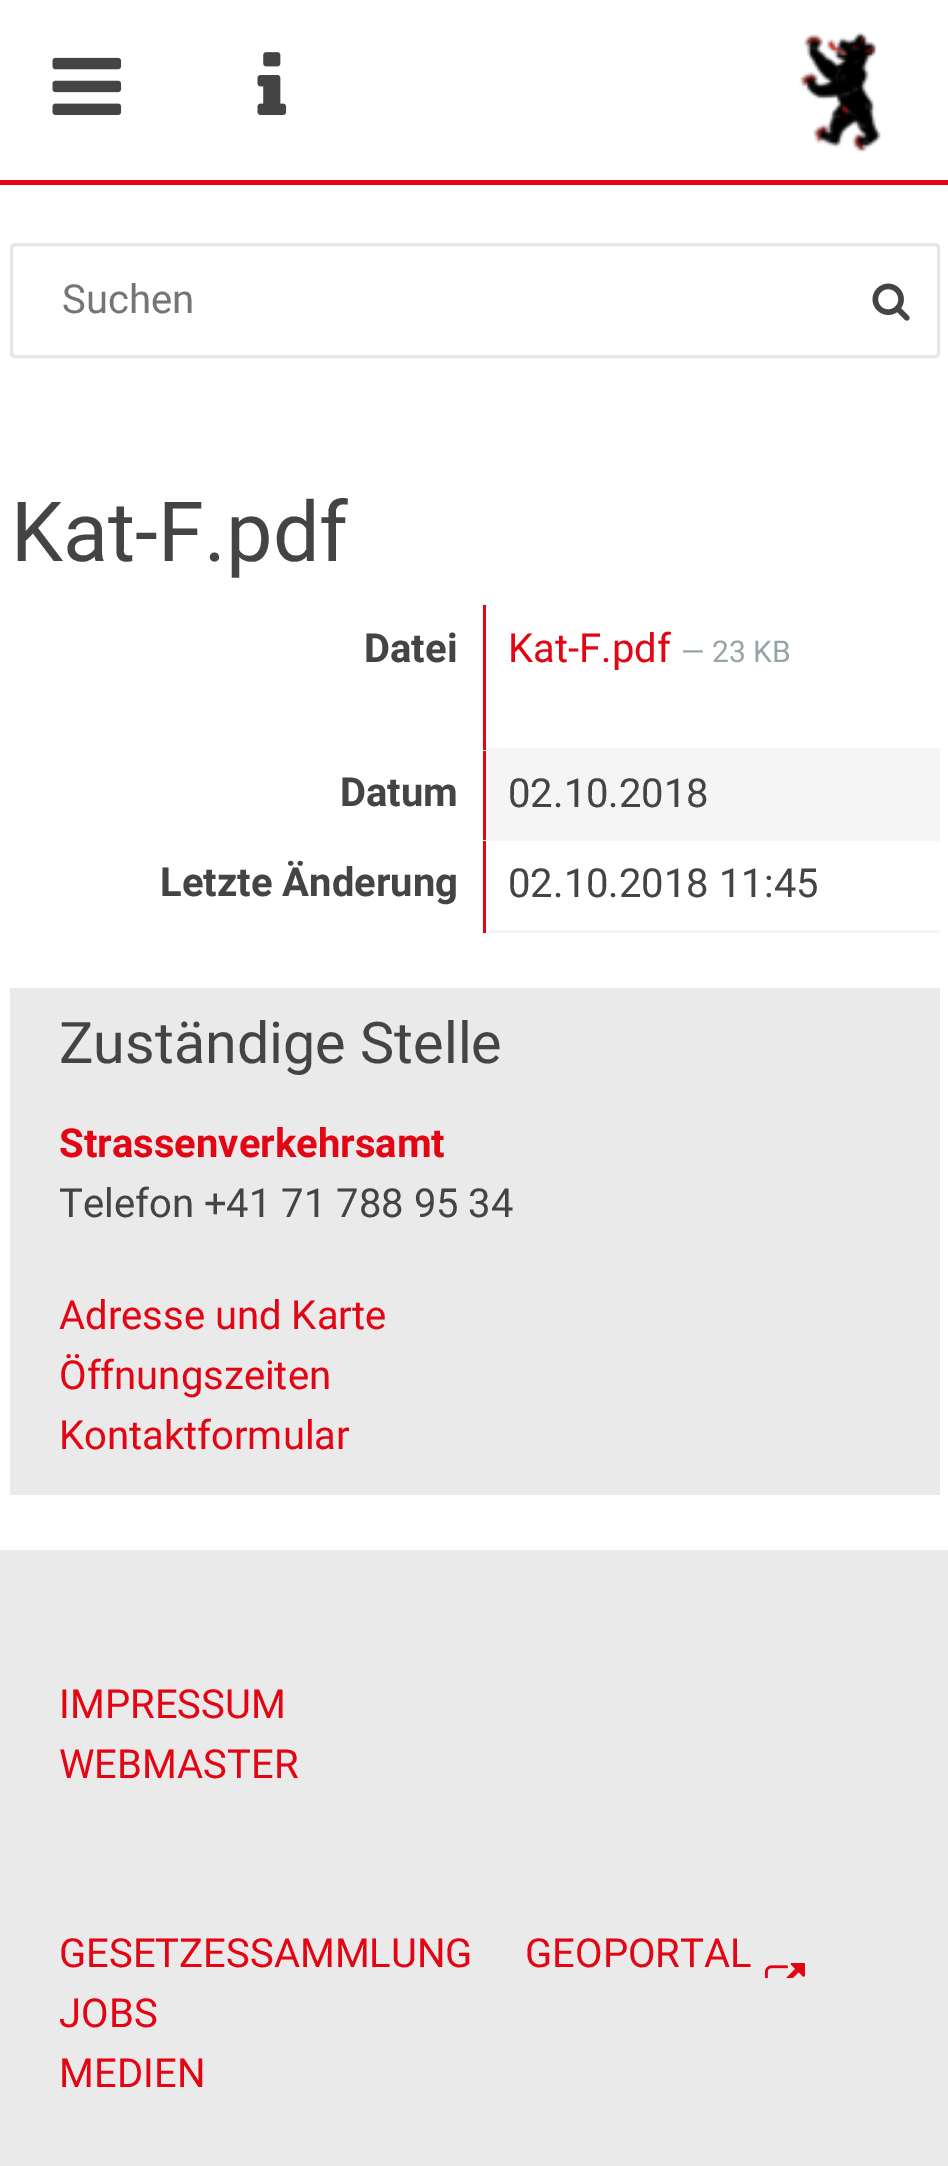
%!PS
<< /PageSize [948 2166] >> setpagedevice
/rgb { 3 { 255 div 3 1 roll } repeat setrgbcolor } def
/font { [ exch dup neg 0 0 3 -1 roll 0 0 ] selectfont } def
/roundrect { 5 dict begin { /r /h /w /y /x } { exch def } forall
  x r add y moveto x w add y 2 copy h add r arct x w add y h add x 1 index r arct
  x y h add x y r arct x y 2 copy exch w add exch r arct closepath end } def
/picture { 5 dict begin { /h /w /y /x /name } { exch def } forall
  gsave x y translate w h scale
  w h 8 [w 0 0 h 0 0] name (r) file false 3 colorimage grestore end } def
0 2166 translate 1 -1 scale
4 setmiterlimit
255 255 255 rgb
0 0 948 2166 rectfill
227 5 19 rgb
0 180 948 5 rectfill
(img/1.rgb) 52 57 70 58 picture
(img/2.rgb) 257 52 30 63 picture
(img/3.rgb) 799 32 82 121 picture
230 230 230 rgb
3 setlinewidth
11.5 244.5 927 112 3.5 roundrect stroke
(img/4.rgb) 872 283 38 38 picture
[
  [483 930 457 3 245 245 245]
  [483 838 3 95 227 5 19]
  [483 838 457 3 245 245 245]
  [483 748 3 92 227 5 19]
  [483 748 457 3 245 245 245]
  [483 605 3 145 227 5 19]
  [486 751 454 87 245 245 245]
  [10 988 930 507 234 234 234]
  [0 1550 948 616 234 234 234]
] { aload pop rgb rectfill } forall
(img/5.rgb) 765 1963 40 15 picture
/Roboto-Regular 40 font
117 117 117 rgb
62 313 moveto (Suchen) show
/Roboto-Regular 83 font
68 68 68 rgb
11 561 moveto (Kat-F.pdf) show
/Roboto-Bold 40 font
364 662 moveto (Datei) show
/Roboto-Regular 40 font
227 5 19 rgb
508 662 moveto (Kat-F.pdf) show
/Roboto-Regular 30 font
149 165 166 rgb
681 662 moveto (— 23 KB) show
/Roboto-Bold 40 font
68 68 68 rgb
340 806 moveto (Datum) show
/Roboto-Regular 40 font
508 807 moveto (02.10.2018) show
/Roboto-Bold 40 font
160 896 moveto (Letzte Änderung) show
/Roboto-Regular 40 font
508 897 moveto (02.10.2018 11:45) show
/Roboto-Regular 57.5 font
59 1063 moveto (Zuständige Stelle) show
/Roboto-Bold 40 font
227 5 19 rgb
59 1157 moveto (Strassenverkehrsamt) show
/Roboto-Regular 40 font
68 68 68 rgb
59 1217 moveto (Telefon +41 71 788 95 34) show
227 5 19 rgb
[
  [(Adresse und Karte) 59 1329]
  [(Öffnungszeiten) 59 1389]
  [(Kontaktformular) 59 1449]
  [(IMPRESSUM) 59 1718]
  [(WEBMASTER) 59 1778]
  [(GESETZESSAMMLUNG) 59 1967]
  [(GEOPORTAL) 525 1967]
  [(JOBS) 59 2027]
  [(MEDIEN) 59 2087]
] { aload pop moveto show } forall
showpage
